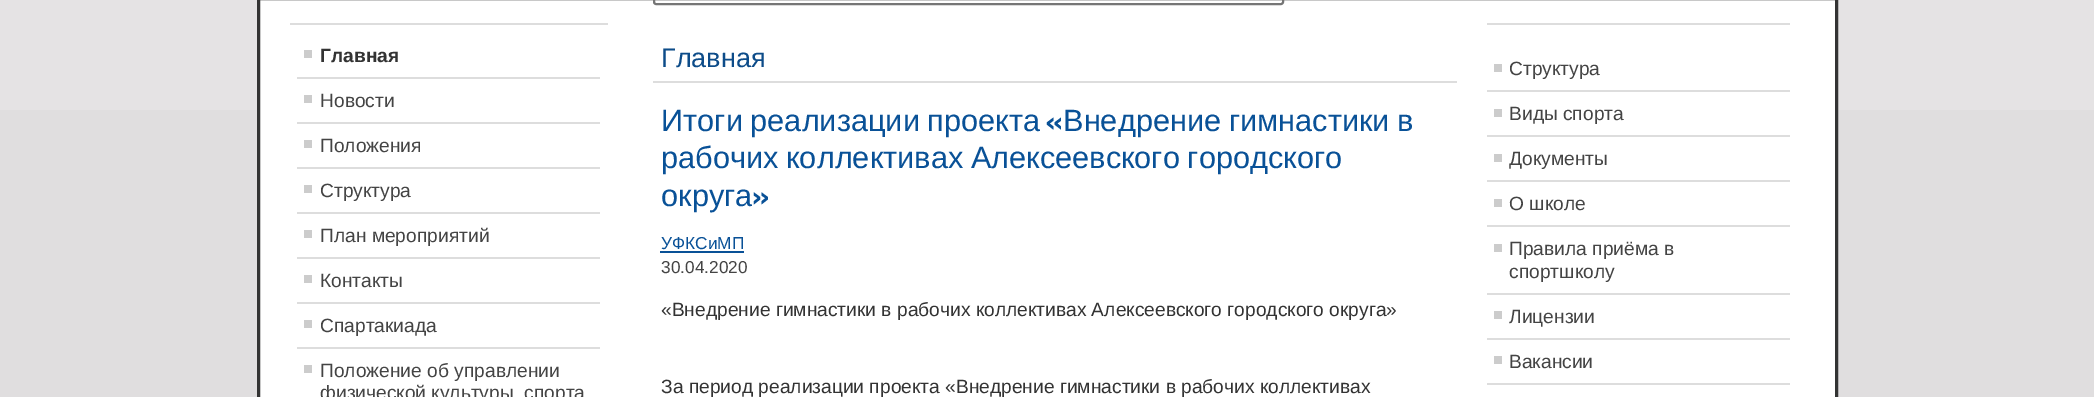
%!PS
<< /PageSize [2094 397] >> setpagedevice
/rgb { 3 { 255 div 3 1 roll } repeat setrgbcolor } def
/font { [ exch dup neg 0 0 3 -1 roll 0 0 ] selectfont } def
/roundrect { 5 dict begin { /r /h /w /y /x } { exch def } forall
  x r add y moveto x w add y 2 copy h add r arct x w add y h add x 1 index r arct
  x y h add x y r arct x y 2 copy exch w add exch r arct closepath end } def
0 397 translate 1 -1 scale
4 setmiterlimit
224 222 223 rgb
0 0 2094 397 rectfill
229 227 228 rgb
0 0 2094 110 rectfill
255 255 255 rgb
258.5 -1.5 moveto 1836.5 -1.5 lineto 1836.5 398.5 lineto 258.5 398.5 lineto closepath gsave fill grestore
51 51 51 rgb
3 setlinewidth
stroke
[
  [290 23 318 2 221 221 221]
  [297 77 303 2 221 221 221]
  [304 50 8 8 204 204 204]
  [297 122 303 2 221 221 221]
  [304 95 8 8 204 204 204]
  [297 167 303 2 221 221 221]
  [304 140 8 8 204 204 204]
  [297 212 303 2 221 221 221]
  [304 185 8 8 204 204 204]
  [297 257 303 2 221 221 221]
  [304 230 8 8 204 204 204]
  [297 302 303 2 221 221 221]
  [304 275 8 8 204 204 204]
  [297 347 303 2 221 221 221]
  [304 320 8 8 204 204 204]
  [304 365 8 8 204 204 204]
] { aload pop rgb rectfill } forall
118 118 118 rgb
2 setlinewidth
654 -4 629 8 2 roundrect stroke
[
  [653 81 804 2 221 221 221]
  [660 251 84 2 9 81 151]
  [1487 23 303 2 221 221 221]
  [1487 90 303 2 221 221 221]
  [1494 64 8 8 204 204 204]
  [1487 135 303 2 221 221 221]
  [1494 109 8 8 204 204 204]
  [1487 180 303 2 221 221 221]
  [1494 154 8 8 204 204 204]
  [1487 225 303 2 221 221 221]
  [1494 199 8 8 204 204 204]
  [1487 293 303 2 221 221 221]
  [1494 244 8 8 204 204 204]
  [1487 338 303 2 221 221 221]
  [1494 311 8 8 204 204 204]
  [1487 383 303 2 221 221 221]
  [1494 356 8 8 204 204 204]
] { aload pop rgb rectfill } forall
/LiberationSans-Bold 19.2 font
51 51 51 rgb
320 62 moveto (Главная) show
/LiberationSans-Regular 19.2 font
68 68 68 rgb
[
  [(Новости) 320 107]
  [(Положения) 320 152]
  [(Структура) 320 197]
  [(План мероприятий) 320 242]
  [(Контакты) 320 287]
  [(Спартакиада) 320 332]
  [(Положение об управлении) 320 377]
  [(физической культуры, спорта) 320 399]
] { aload pop moveto show } forall
/LiberationSans-Regular 27 font
13 76 137 rgb
661 67 moveto (Главная) show
/LiberationSans-Regular 30.75 font
9 81 151 rgb
661 131 moveto -1 0 32 (Итоги реализации проекта) widthshow
/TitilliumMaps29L-ExtraBold 30.75 font
1045 131 moveto («) show
/LiberationSans-Regular 30.75 font
1063 131 moveto -1 0 32 (Внедрение гимнастики в) widthshow
661 168 moveto -1 0 32 (рабочих коллективах Алексеевского городского) widthshow
661 206 moveto (округа) show
/TitilliumMaps29L-ExtraBold 30.75 font
752 206 moveto (») show
/LiberationSans-Regular 17.25 font
661 249 moveto (УФКСиМП) show
68 68 68 rgb
661 273 moveto (30.04.2020) show
/LiberationSans-Regular 19.2 font
51 51 51 rgb
661 316 moveto («Внедрение гимнастики в рабочих коллективах Алексеевского городского округа») show
661 393 moveto (За период реализации проекта «Внедрение гимнастики в рабочих коллективах) show
68 68 68 rgb
[
  [(Структура) 1509 75]
  [(Виды спорта) 1509 120]
  [(Документы) 1509 165]
  [(О школе) 1509 210]
  [(Правила приёма в) 1509 255]
  [(спортшколу) 1509 278]
  [(Лицензии) 1509 323]
  [(Вакансии) 1509 368]
] { aload pop moveto show } forall
showpage
